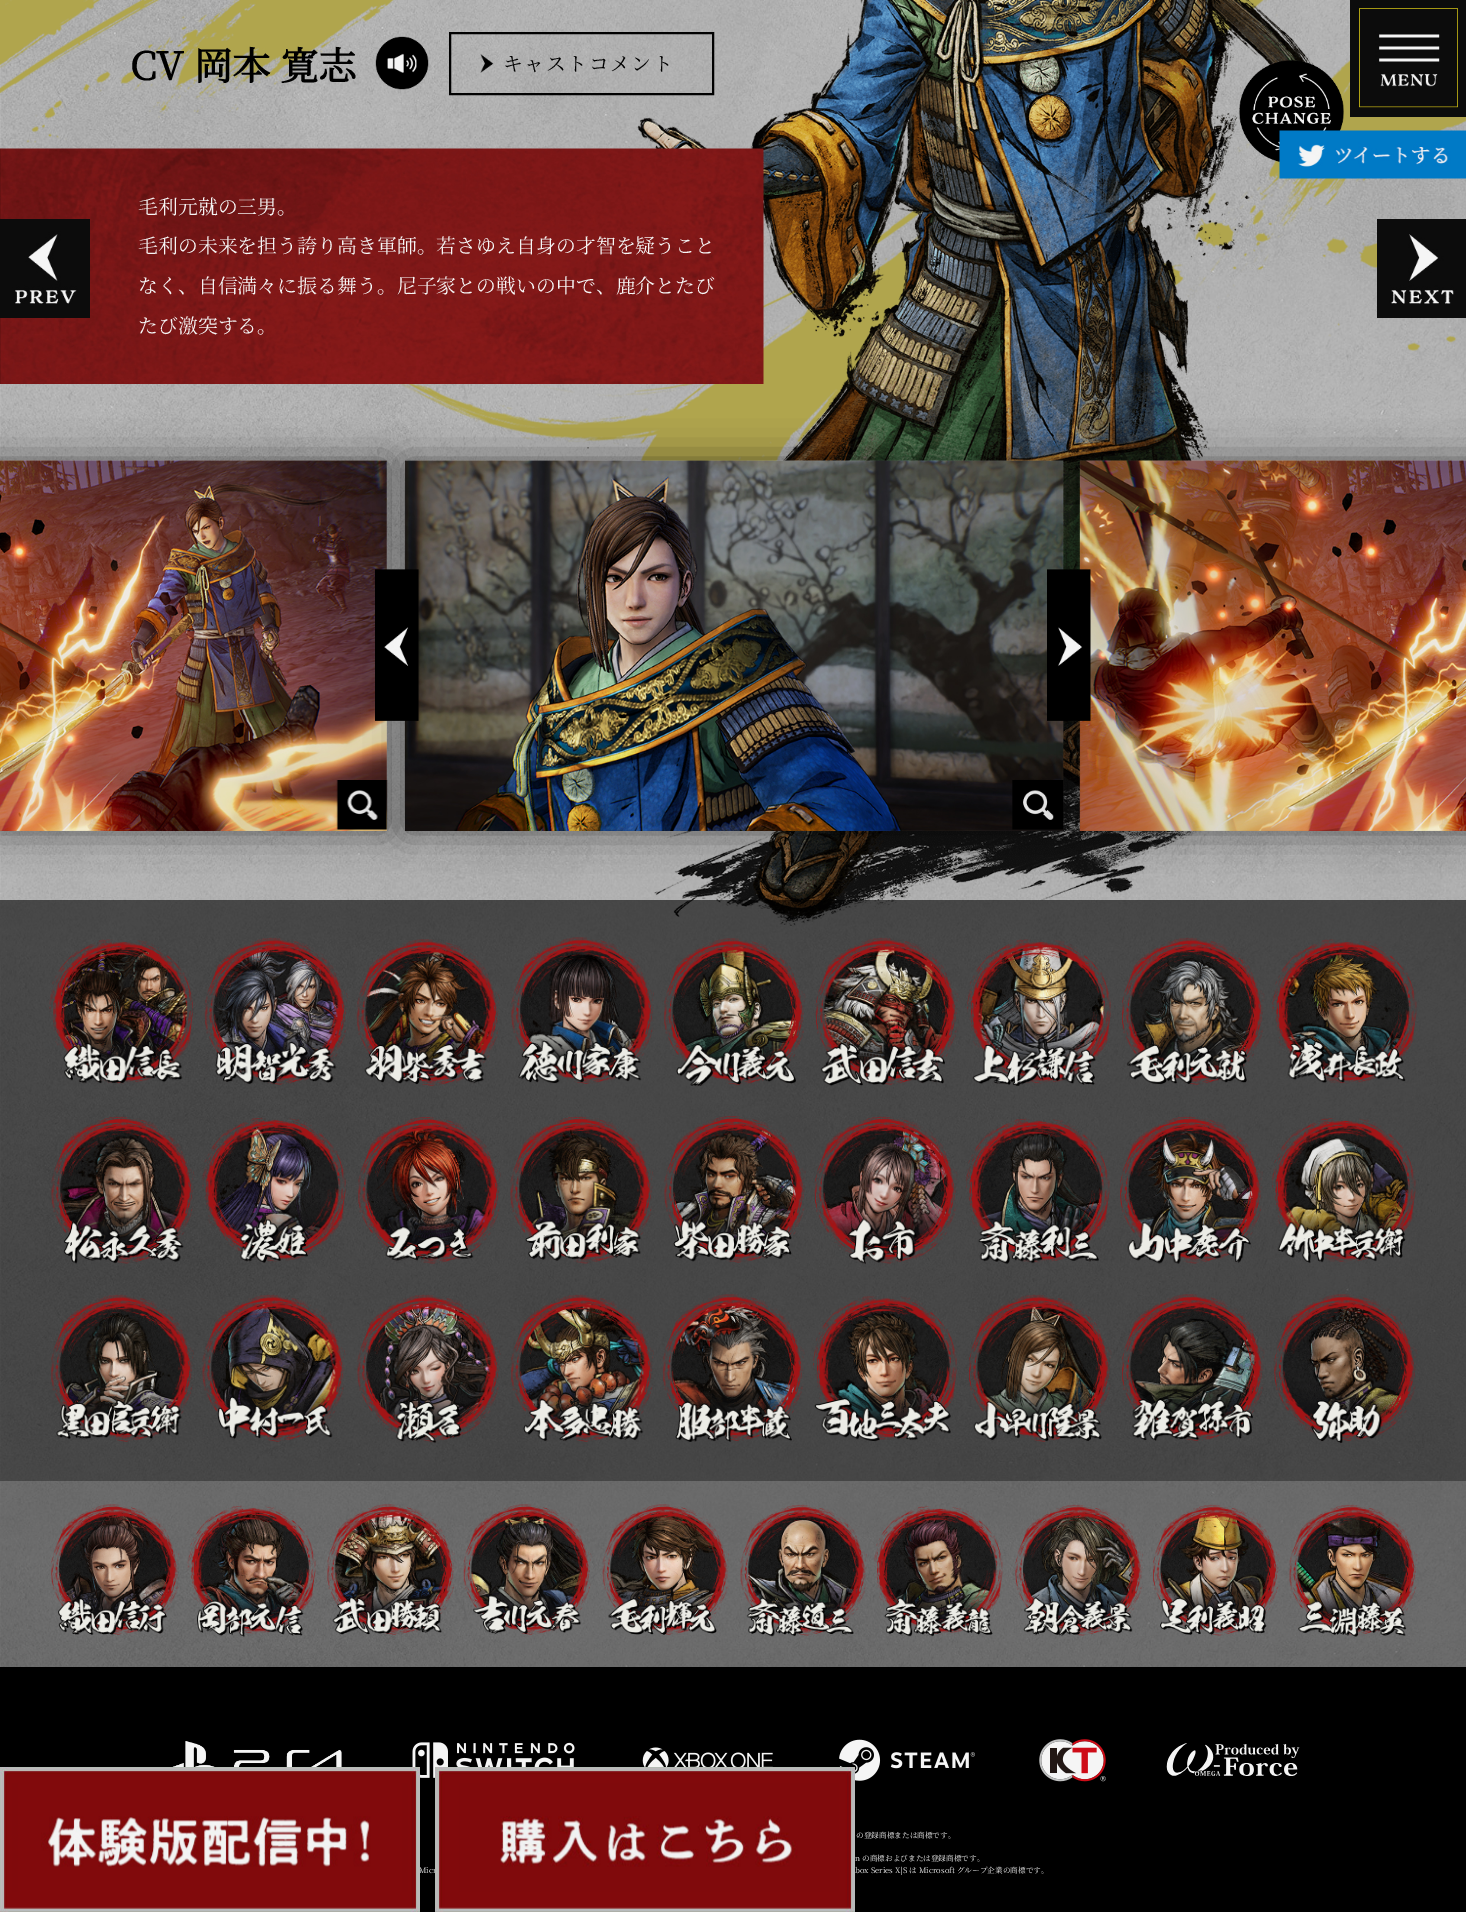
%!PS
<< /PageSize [1466 1912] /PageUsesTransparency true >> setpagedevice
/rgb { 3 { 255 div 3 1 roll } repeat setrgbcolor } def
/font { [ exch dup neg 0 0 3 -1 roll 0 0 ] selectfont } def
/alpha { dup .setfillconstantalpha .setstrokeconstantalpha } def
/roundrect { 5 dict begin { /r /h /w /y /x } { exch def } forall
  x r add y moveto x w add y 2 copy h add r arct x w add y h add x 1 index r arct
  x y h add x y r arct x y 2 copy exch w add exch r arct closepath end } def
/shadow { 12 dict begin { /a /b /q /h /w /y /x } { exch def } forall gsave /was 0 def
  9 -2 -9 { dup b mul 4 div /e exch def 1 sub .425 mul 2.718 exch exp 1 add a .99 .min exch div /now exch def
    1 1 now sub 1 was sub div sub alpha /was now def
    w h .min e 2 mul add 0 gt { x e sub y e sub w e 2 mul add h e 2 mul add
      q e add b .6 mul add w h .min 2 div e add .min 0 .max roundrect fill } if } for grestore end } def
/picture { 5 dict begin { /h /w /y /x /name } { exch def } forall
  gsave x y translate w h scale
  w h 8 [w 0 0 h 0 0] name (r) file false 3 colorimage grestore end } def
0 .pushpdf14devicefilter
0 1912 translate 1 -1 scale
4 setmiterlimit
255 255 255 rgb
0 0 1466 1912 rectfill
(img/1.rgb) 0 0 1466 1667 picture
(img/2.rgb) 400 0 1066 461 picture
(img/3.rgb) 0 0 394 143 picture
(img/7.rgb) 587 0 728 927 picture
(img/9.rgb) 0 148 764 236 picture
(img/4.rgb) 0 219 90 99 picture
(img/5.rgb) 375 36 54 54 picture
0 0 0 rgb
2 setlinewidth
450 33 263 61 rectstroke
(img/6.rgb) 480 54 14 19 picture
(img/8.rgb) 1239 60 105 103 picture
(img/10.rgb) 1377 219 89 99 picture
-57 461 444 370 0 19 0.5 shadow
(img/11.rgb) 0 460 387 371 picture
(img/12.rgb) 336 780 52 50 picture
405 461 659 370 0 19 0.5 shadow
(img/13.rgb) 404 460 660 371 picture
(img/14.rgb) 1012 780 52 50 picture
1080 461 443 370 0 19 0.5 shadow
(img/15.rgb) 1079 460 387 371 picture
(img/16.rgb) 375 569 44 152 picture
(img/17.rgb) 1047 569 44 152 picture
0.6 alpha
0 900 1466 581 rectfill
1 alpha
(img/18.rgb) 49 939 144 145 picture
(img/19.rgb) 204 937 144 148 picture
(img/20.rgb) 356 939 144 147 picture
(img/21.rgb) 511 937 143 147 picture
(img/22.rgb) 664 938 142 148 picture
(img/23.rgb) 815 937 144 149 picture
(img/24.rgb) 967 939 144 147 picture
(img/25.rgb) 1122 937 143 148 picture
(img/26.rgb) 1272 939 145 145 picture
(img/27.rgb) 51 1116 144 148 picture
(img/28.rgb) 202 1117 144 146 picture
(img/29.rgb) 358 1117 143 147 picture
(img/30.rgb) 510 1116 144 148 picture
(img/31.rgb) 664 1116 142 147 picture
(img/32.rgb) 814 1116 144 149 picture
(img/33.rgb) 966 1118 144 146 picture
(img/34.rgb) 1120 1116 143 148 picture
(img/35.rgb) 1272 1118 144 145 picture
(img/36.rgb) 51 1294 143 148 picture
(img/37.rgb) 202 1294 144 148 picture
(img/38.rgb) 357 1294 144 149 picture
(img/39.rgb) 511 1294 143 148 picture
(img/40.rgb) 662 1294 143 148 picture
(img/41.rgb) 813 1296 144 145 picture
(img/42.rgb) 969 1294 143 148 picture
(img/43.rgb) 1122 1294 143 147 picture
(img/44.rgb) 1274 1294 144 149 picture
0.4 alpha
0 1481 1466 186 rectfill
1 alpha
(img/45.rgb) 51 1504 129 131 picture
(img/46.rgb) 187 1505 129 132 picture
(img/47.rgb) 327 1504 128 131 picture
(img/48.rgb) 463 1504 129 131 picture
(img/49.rgb) 602 1504 127 131 picture
(img/50.rgb) 740 1504 127 133 picture
(img/51.rgb) 874 1506 129 131 picture
(img/52.rgb) 1015 1504 128 133 picture
(img/53.rgb) 1153 1504 127 132 picture
(img/54.rgb) 1289 1504 129 133 picture
0 1667 1466 245 rectfill
(img/55.rgb) 172 1741 170 26 picture
(img/56.rgb) 412 1742 163 36 picture
(img/57.rgb) 642 1747 131 20 picture
(img/58.rgb) 839 1739 136 42 picture
(img/59.rgb) 1039 1739 67 43 picture
(img/60.rgb) 1166 1743 134 33 picture
(img/61.rgb) 1350 0 116 117 picture
(img/62.rgb) 1279 130 187 49 picture
/NotoSerifJP-Bold 38.25 font
130 80 moveto (CV 岡本 寛志) show
/NotoSerifJP-ExtraLight 19.9 font
503 71 moveto 1.5 0 (キャストコメント) ashow
245 245 245 rgb
[
  [(毛利元就の三男。) 138 214]
  [(毛利の未来を担う誇り高き軍師。若さゆえ自身の才智を疑うこと) 138 253]
  [(なく、自信満々に振る舞う。尼子家との戦いの中で、鹿介とたび) 138 293]
  [(たび激突する。) 138 333]
] { aload pop moveto show } forall
/NotoSerifJP-ExtraLight 7.65 font
[
  [(の登録商標または商標です。) 856 1838]
  [(n の商標およびまたは登録商標です。) 855 1861]
  [(Micr) 419 1873]
  [(box Series X|S は Microsoft グループ企業の商標です。) 855 1873]
] { aload pop moveto show } forall
(img/63.rgb) 0 1767 420 145 picture
(img/64.rgb) 435 1767 420 145 picture
.poppdf14devicefilter showpage
